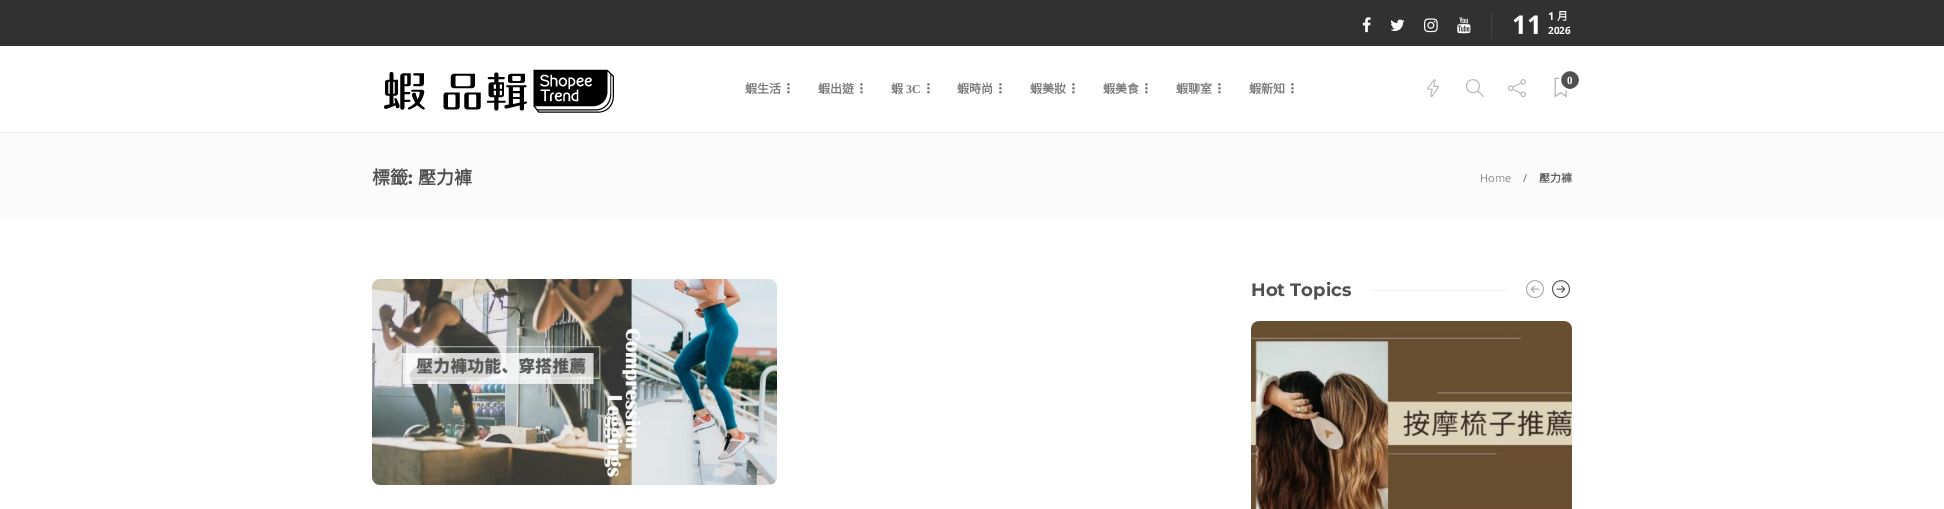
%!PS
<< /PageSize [1944 509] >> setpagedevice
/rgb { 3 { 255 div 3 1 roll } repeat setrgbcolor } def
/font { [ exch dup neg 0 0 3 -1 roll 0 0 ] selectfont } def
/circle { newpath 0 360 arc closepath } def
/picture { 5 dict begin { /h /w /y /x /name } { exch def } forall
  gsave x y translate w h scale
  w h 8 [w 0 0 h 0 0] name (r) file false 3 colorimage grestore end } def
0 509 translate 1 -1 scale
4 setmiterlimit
255 255 255 rgb
0 0 1944 509 rectfill
49 49 49 rgb
0 0 1944 46 rectfill
67 67 67 rgb
1491 12 1 27 rectfill
(img/1.rgb) 1362 17 9 16 picture
(img/2.rgb) 1390 19 15 12 picture
(img/3.rgb) 1424 18 14 15 picture
(img/4.rgb) 1457 17 14 17 picture
235 235 235 rgb
0 132 1944 1 rectfill
(img/5.rgb) 384 69 230 44 picture
(img/6.rgb) 1427 79 12 19 picture
(img/7.rgb) 1466 79 18 18 picture
(img/8.rgb) 1508 79 18 19 picture
(img/9.rgb) 1554 77 13 21 picture
80 80 80 rgb
1570 80 10 circle gsave fill grestore
255 255 255 rgb
2 setlinewidth
stroke
(img/10.rgb) 787 83 3 11 picture
(img/10.rgb) 860 83 3 11 picture
(img/10.rgb) 927 83 3 11 picture
(img/10.rgb) 999 83 3 11 picture
(img/10.rgb) 1072 83 3 11 picture
(img/10.rgb) 1145 83 3 11 picture
(img/10.rgb) 1218 83 3 11 picture
(img/10.rgb) 1291 83 3 11 picture
251 251 251 rgb
0 133 1944 86 rectfill
(img/11.rgb) 372 279 405 206 picture
240 240 240 rgb
1371 290 136 1 rectfill
(img/12.rgb) 1526 280 18 19 picture
(img/13.rgb) 1552 280 18 19 picture
(img/14.rgb) 1251 321 321 188 picture
/OpenSans-Bold 26 font
255 255 255 rgb
1512 34 moveto (11) show
/OpenSans-Bold 11 font
1548 20 moveto (1) show
/NotoSansCJKTC-Bold 11 font
1557 20 moveto (月) show
/OpenSans-Bold 10 font
1548 34 moveto (2026) show
/LiberationSerif-Bold 11 font
1567 84 moveto (0) show
/NotoSansCJKTC-Bold 12 font
121 121 121 rgb
[
  [(蝦生活) 745 93]
  [(蝦出遊) 818 93]
  [(蝦) 891 93]
] { aload pop moveto show } forall
/LiberationSerif-Bold 12 font
906 93 moveto (3C) show
/NotoSansCJKTC-Bold 12 font
[
  [(蝦時尚) 957 93]
  [(蝦美妝) 1030 93]
  [(蝦美食) 1103 93]
  [(蝦聊室) 1176 93]
  [(蝦新知) 1249 93]
] { aload pop moveto show } forall
/NotoSansCJKTC-Bold 18 font
80 80 80 rgb
372 184 moveto (標籤) show
/Montserrat-Bold 18 font
408 184 moveto (:) show
/NotoSansCJKTC-Bold 18 font
418 184 moveto (壓力褲) show
/OpenSans-Regular 11 font
141 141 141 rgb
1480 182 moveto (Home) show
97 97 97 rgb
1523 182 moveto (/) show
/NotoSansCJKTC-Bold 11 font
1539 182 moveto (壓力褲) show
/Montserrat-Bold 18 font
80 80 80 rgb
1251 296 moveto (Hot Topics) show
showpage
